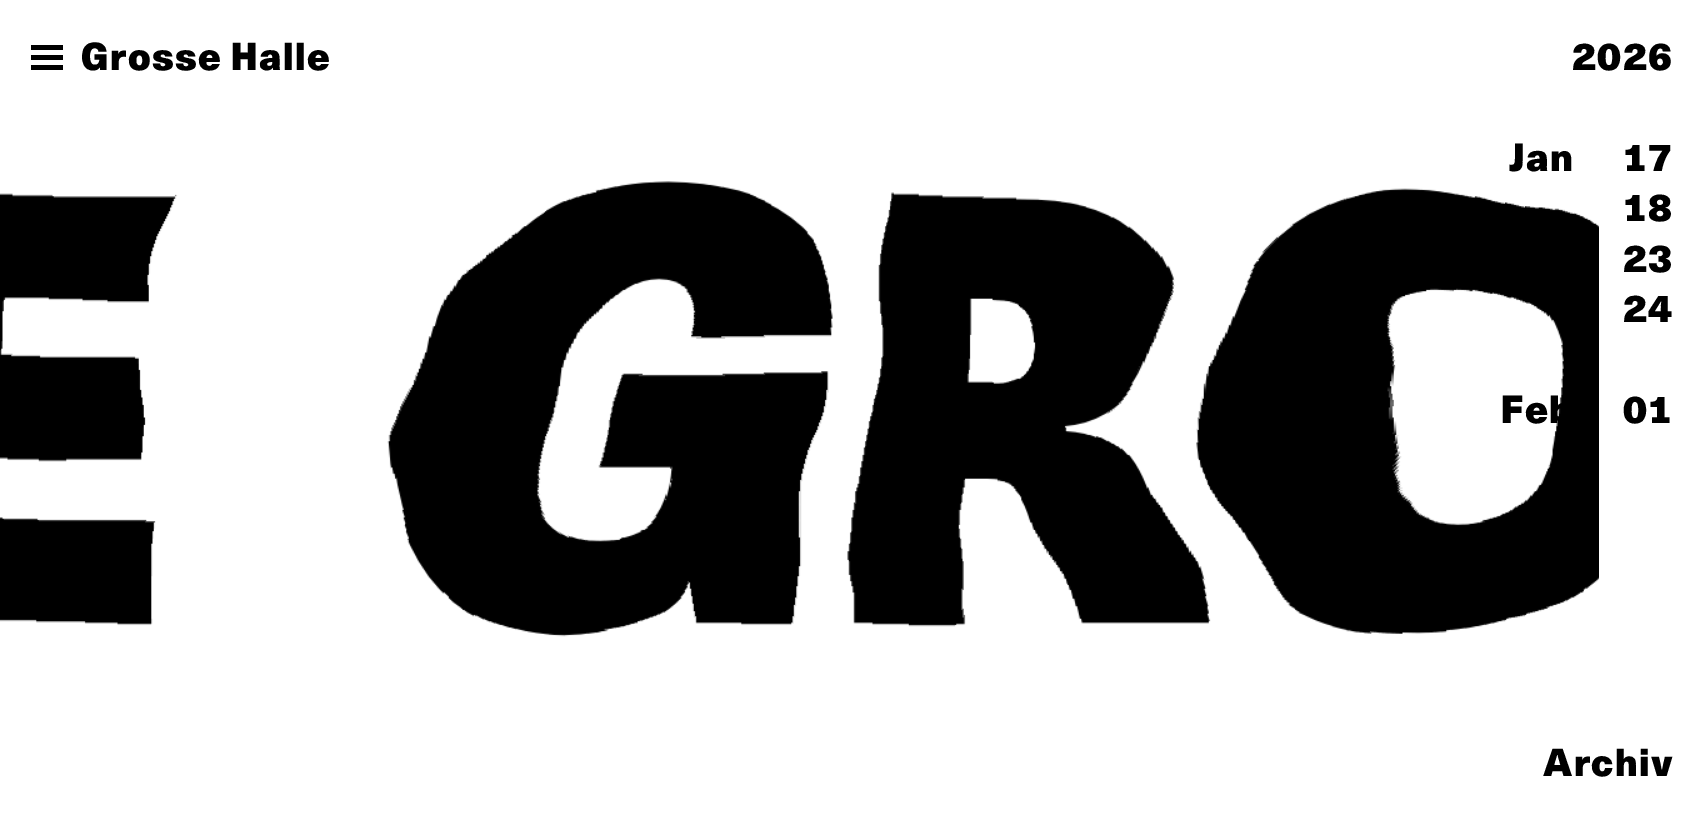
%!PS
<< /PageSize [1705 818] >> setpagedevice
/rgb { 3 { 255 div 3 1 roll } repeat setrgbcolor } def
/font { [ exch dup neg 0 0 3 -1 roll 0 0 ] selectfont } def
/picture { 5 dict begin { /h /w /y /x /name } { exch def } forall
  gsave x y translate w h scale
  w h 8 [w 0 0 h 0 0] name (r) file false 3 colorimage grestore end } def
0 818 translate 1 -1 scale
4 setmiterlimit
255 255 255 rgb
0 0 1705 818 rectfill
[
  [31 45 32 5 0 0 0]
  [31 55 32 5 0 0 0]
  [31 65 32 5 0 0 0]
] { aload pop rgb rectfill } forall
(img/1.rgb) 0 181 1599 456 picture
/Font-Black 37.5 font
81 70 moveto 1.5 0 (Grosse Halle) ashow
/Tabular-Black 38 font
1572 70 moveto 1.5 0 (2026) ashow
/Font-Black 38 font
1509 171 moveto 1.5 0 (Jan) ashow
/Tabular-Black 38 font
1623 171 moveto 1.5 0 (17) ashow
1623 221 moveto 1.5 0 (18) ashow
1623 272 moveto 1.5 0 (23) ashow
1623 322 moveto 1.5 0 (24) ashow
/Font-Black 38 font
1501 423 moveto 1.5 0 (Feb) ashow
/Tabular-Black 38 font
1623 423 moveto 1.5 0 (01) ashow
/Font-Black 37.5 font
1543 776 moveto 1.5 0 (Archiv) ashow
showpage
